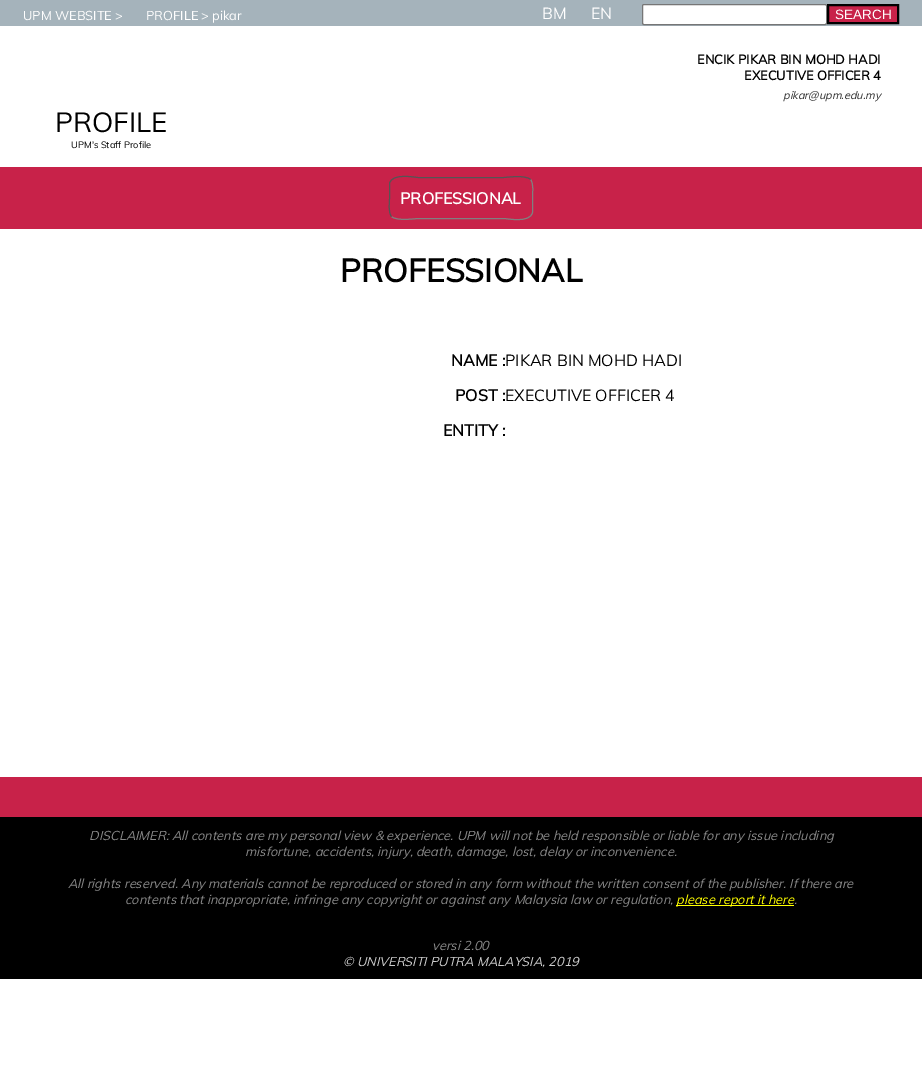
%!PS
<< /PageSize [922 1086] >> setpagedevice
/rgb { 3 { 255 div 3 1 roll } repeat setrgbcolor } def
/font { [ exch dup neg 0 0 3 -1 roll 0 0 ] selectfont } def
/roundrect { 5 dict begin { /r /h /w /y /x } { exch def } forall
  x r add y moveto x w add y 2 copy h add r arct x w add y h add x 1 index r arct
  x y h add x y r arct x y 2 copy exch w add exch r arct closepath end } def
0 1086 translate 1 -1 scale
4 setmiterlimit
255 255 255 rgb
0 0 922 1086 rectfill
165 179 187 rgb
0 0 922 26 rectfill
255 255 255 rgb
642.5 4.5 184 20 1.5 roundrect gsave fill grestore
118 118 118 rgb
stroke
200 34 73 rgb
828 5 moveto 898 5 lineto 898 23 lineto 828 23 lineto closepath gsave fill grestore
0 0 0 rgb
2 setlinewidth
stroke
200 34 73 rgb
0 167 922 62 rectfill
128 128 128 rgb
1 setlinewidth
530.5 179.5 moveto 534 183.5 532.5 193.5 532.5 198 curveto 532.5 212.5 lineto 530 223.5 507 218.5 503.5 218.5 curveto 418.5 218.5 lineto 415.5 218.5 397 221.5 391.5 216.5 curveto stroke
85 85 85 rgb
391.5 216.5 moveto 388 212.5 389.5 202.5 389.5 198 curveto 389.5 183.5 lineto 392 172.5 415 177.5 418.5 177.5 curveto 503.5 177.5 lineto 506.5 177.5 525 174.5 530.5 179.5 curveto stroke
[
  [0 777 922 40 200 34 73]
  [0 817 922 162 0 0 0]
  [676 905 118 1 255 255 0]
] { aload pop rgb rectfill } forall
/Muli-Regular 12.8 font
255 255 255 rgb
[
  [(UPM WEBSITE) 23 20]
  [(>) 115 20]
  [(PROFILE) 146 20]
  [(> pikar) 201 20]
] { aload pop moveto show } forall
/Muli-Regular 16 font
542 19 moveto (BM) show
591 19 moveto (EN) show
/LiberationSans-Regular 13.5 font
835 19 moveto (SEARCH) show
/Muli-Bold 12.9 font
0 0 0 rgb
697 64 moveto (ENCIK PIKAR BIN MOHD HADI) show
744 80 moveto (EXECUTIVE OFFICER 4) show
/Muli-Italic 11 font
51 51 51 rgb
783 99 moveto (pikar@upm.edu.my) show
/Muli-Regular 27.5 font
0 0 0 rgb
55 132 moveto (PROFILE) show
/Muli-Regular 9.25 font
71 148 moveto (UPM's Staff Profile) show
/Muli-Bold 16 font
255 255 255 rgb
400 204 moveto (PROFESSIONAL) show
/Muli-Bold 32 font
0 0 0 rgb
340 282 moveto (PROFESSIONAL) show
/Muli-Bold 16 font
451 366 moveto (NAME :) show
/Muli-Regular 16 font
505 366 moveto (PIKAR BIN MOHD HADI) show
/Muli-Bold 16 font
455 401 moveto (POST :) show
/Muli-Regular 16 font
505 401 moveto (EXECUTIVE OFFICER 4) show
/Muli-Bold 16 font
443 436 moveto (ENTITY :) show
/Muli-Italic 12.8 font
136 136 136 rgb
[
  [(DISCLAIMER: All contents are my personal view & experience. UPM will not be held responsible or liable for any issue including) 89 840]
  [(misfortune, accidents, injury, death, damage, lost, delay or inconvenience.) 245 856]
  [(All rights reserved. Any materials cannot be reproduced or stored in any form without the written consent of the publisher. If there are) 68 888]
  [(contents that inappropriate, infringe any copyright or against any Malaysia law or regulation,) 125 904]
] { aload pop moveto show } forall
255 255 0 rgb
676 904 moveto (please report it here) show
136 136 136 rgb
794 904 moveto (.) show
432 950 moveto (versi 2.00) show
204 204 204 rgb
343 966 moveto (© UNIVERSITI PUTRA MALAYSIA, 2019) show
showpage
